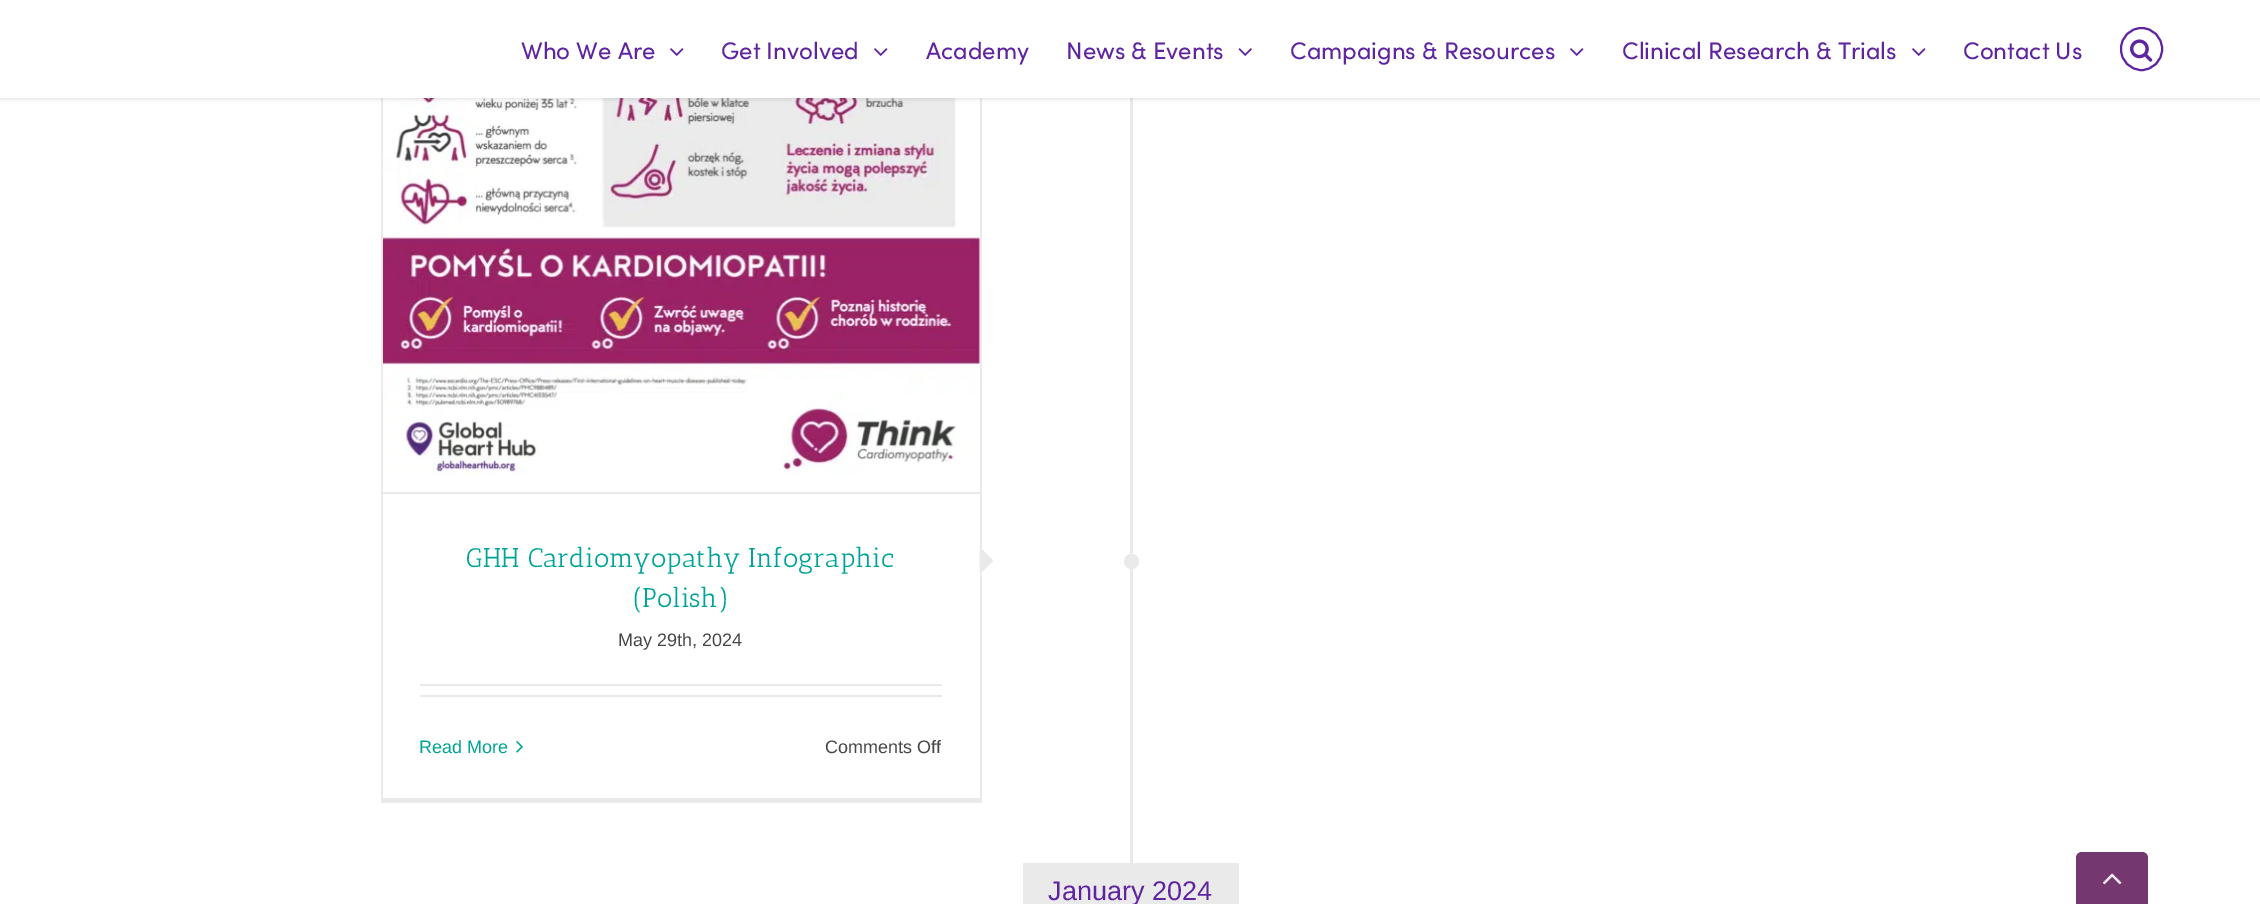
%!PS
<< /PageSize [2260 904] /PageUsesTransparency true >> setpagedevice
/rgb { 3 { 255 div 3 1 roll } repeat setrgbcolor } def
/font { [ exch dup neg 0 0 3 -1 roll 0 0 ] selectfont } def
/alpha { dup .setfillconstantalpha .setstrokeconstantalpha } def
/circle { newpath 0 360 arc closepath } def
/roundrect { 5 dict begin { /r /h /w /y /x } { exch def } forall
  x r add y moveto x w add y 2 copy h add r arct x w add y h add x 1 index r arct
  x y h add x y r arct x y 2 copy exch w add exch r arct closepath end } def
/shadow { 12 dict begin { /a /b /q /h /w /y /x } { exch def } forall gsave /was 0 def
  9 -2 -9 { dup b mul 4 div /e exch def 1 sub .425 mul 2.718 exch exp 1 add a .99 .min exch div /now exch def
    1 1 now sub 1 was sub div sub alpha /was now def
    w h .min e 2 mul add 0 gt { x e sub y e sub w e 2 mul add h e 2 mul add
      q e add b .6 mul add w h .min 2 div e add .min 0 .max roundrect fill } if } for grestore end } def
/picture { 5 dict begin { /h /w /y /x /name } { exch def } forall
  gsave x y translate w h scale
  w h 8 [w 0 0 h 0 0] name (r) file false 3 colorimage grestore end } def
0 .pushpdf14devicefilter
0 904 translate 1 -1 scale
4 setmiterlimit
255 255 255 rgb
0 0 2260 904 rectfill
[
  [980 98 2 705 234 234 234]
  [381 798 600 5 234 234 234]
  [381 98 2 705 234 234 234]
] { aload pop rgb rectfill } forall
(img/4.rgb) 383 98 597 378 picture
235 234 234 rgb
1130 98 3 765 rectfill
0 0 0 rgb
0 2 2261 97 0 2 0.12 shadow
255 255 255 rgb
0 0 2260 98 rectfill
(img/1.rgb) 670 48 14 8 picture
(img/1.rgb) 874 48 14 8 picture
(img/2.rgb) 1238 48 14 8 picture
(img/1.rgb) 1570 48 14 8 picture
(img/1.rgb) 1912 48 14 8 picture
95 36 159 rgb
2 setlinewidth
2121 28 41 42 20.5 roundrect stroke
(img/3.rgb) 2130 39 23 23 picture
[
  [383 492 597 2 235 234 234]
  [420 684 522 2 235 234 234]
  [420 695 522 2 235 234 234]
] { aload pop rgb rectfill } forall
(img/5.rgb) 979 549 14 23 picture
1131.5 561.5 7.5 circle fill
(img/6.rgb) 516 741 7 12 picture
1023 863 216 41 rectfill
116 55 112 rgb
2082 852 moveto 2142 852 lineto 2145.5 852 2148 854.5 2148 858 curveto 2148 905 lineto 2076 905 lineto 2076 858 lineto 2076 854.5 2078.5 852 2082 852 curveto closepath fill
(img/7.rgb) 2103 873 19 12 picture
/Sofia-Regular 24 font
95 36 159 rgb
[
  [(Who We Are) 521 59]
  [(Get Involved) 721 59]
  [(Academy) 926 59]
  [(News & Events) 1066 59]
  [(Campaigns & Resources) 1290 59]
  [(Clinical Research & Trials) 1622 59]
  [(Contact Us) 1963 59]
] { aload pop moveto show } forall
/AnticSlab-Regular 27 font
0 164 151 rgb
466 567 moveto (GHH Cardiomyopathy Infographic) show
633 607 moveto (\(Polish\)) show
/LiberationSans-Regular 18 font
71 71 71 rgb
618 646 moveto (May 29th, 2024) show
0 164 151 rgb
419 753 moveto (Read More) show
71 71 71 rgb
825 753 moveto (Comments Off) show
/LiberationSans-Regular 27 font
95 36 159 rgb
1048 900 moveto (January 2024) show
.poppdf14devicefilter showpage
